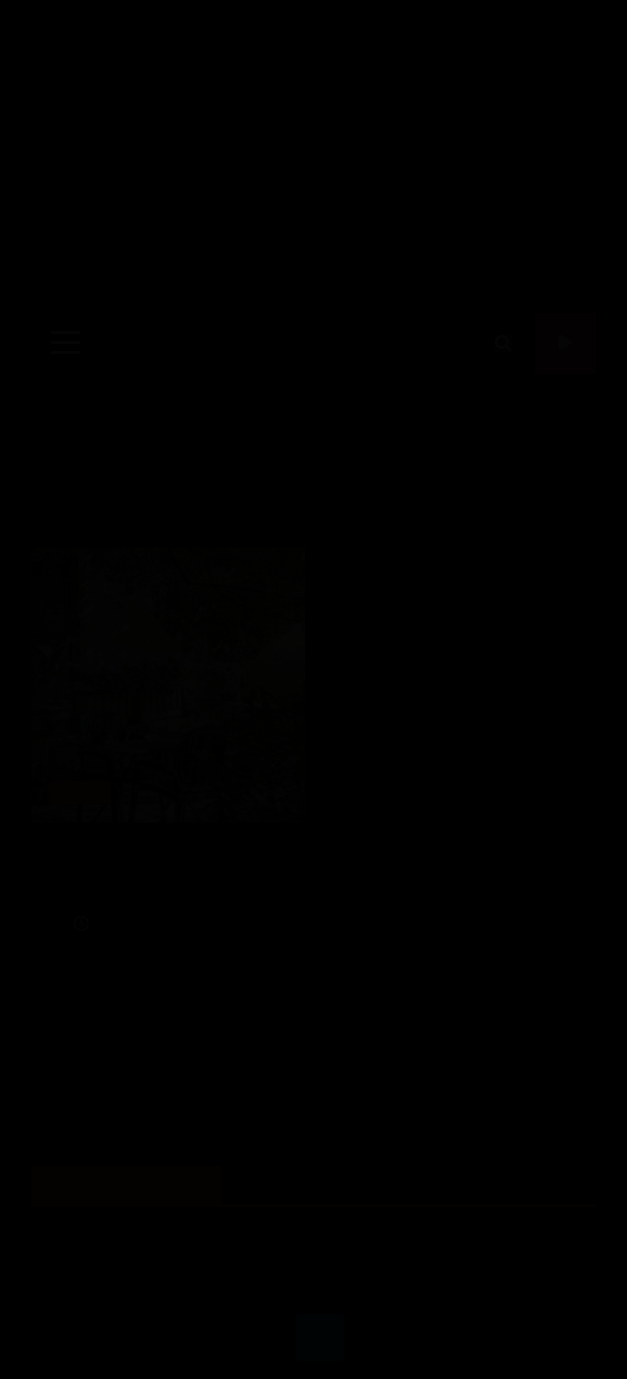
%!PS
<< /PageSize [627 1379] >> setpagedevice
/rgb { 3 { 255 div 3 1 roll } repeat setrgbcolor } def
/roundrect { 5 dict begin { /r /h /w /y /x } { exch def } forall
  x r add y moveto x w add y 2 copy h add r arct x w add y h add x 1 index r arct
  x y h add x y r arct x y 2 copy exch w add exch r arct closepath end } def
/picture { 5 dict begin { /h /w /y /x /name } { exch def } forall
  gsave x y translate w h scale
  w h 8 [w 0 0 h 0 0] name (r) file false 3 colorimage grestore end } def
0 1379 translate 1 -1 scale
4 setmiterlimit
0 0 0 rgb
0 0 627 1379 rectfill
[
  [51 341 29 3 5 5 5]
  [51 331 29 3 5 5 5]
  [51 351 29 3 5 5 5]
] { aload pop rgb rectfill } forall
(img/1.rgb) 495 335 17 17 picture
3 1 1 rgb
535 313 61 61 rectfill
(img/2.rgb) 558 334 14 16 picture
(img/3.rgb) 31 547 274 276 picture
4 1 1 rgb
50 781 61 23 rectfill
(img/4.rgb) 73 915 16 16 picture
31 1204 565 3 rectfill
31 1166 190 38 rectfill
0 3 3 rgb
296 1314 48 47 4 roundrect fill
showpage
